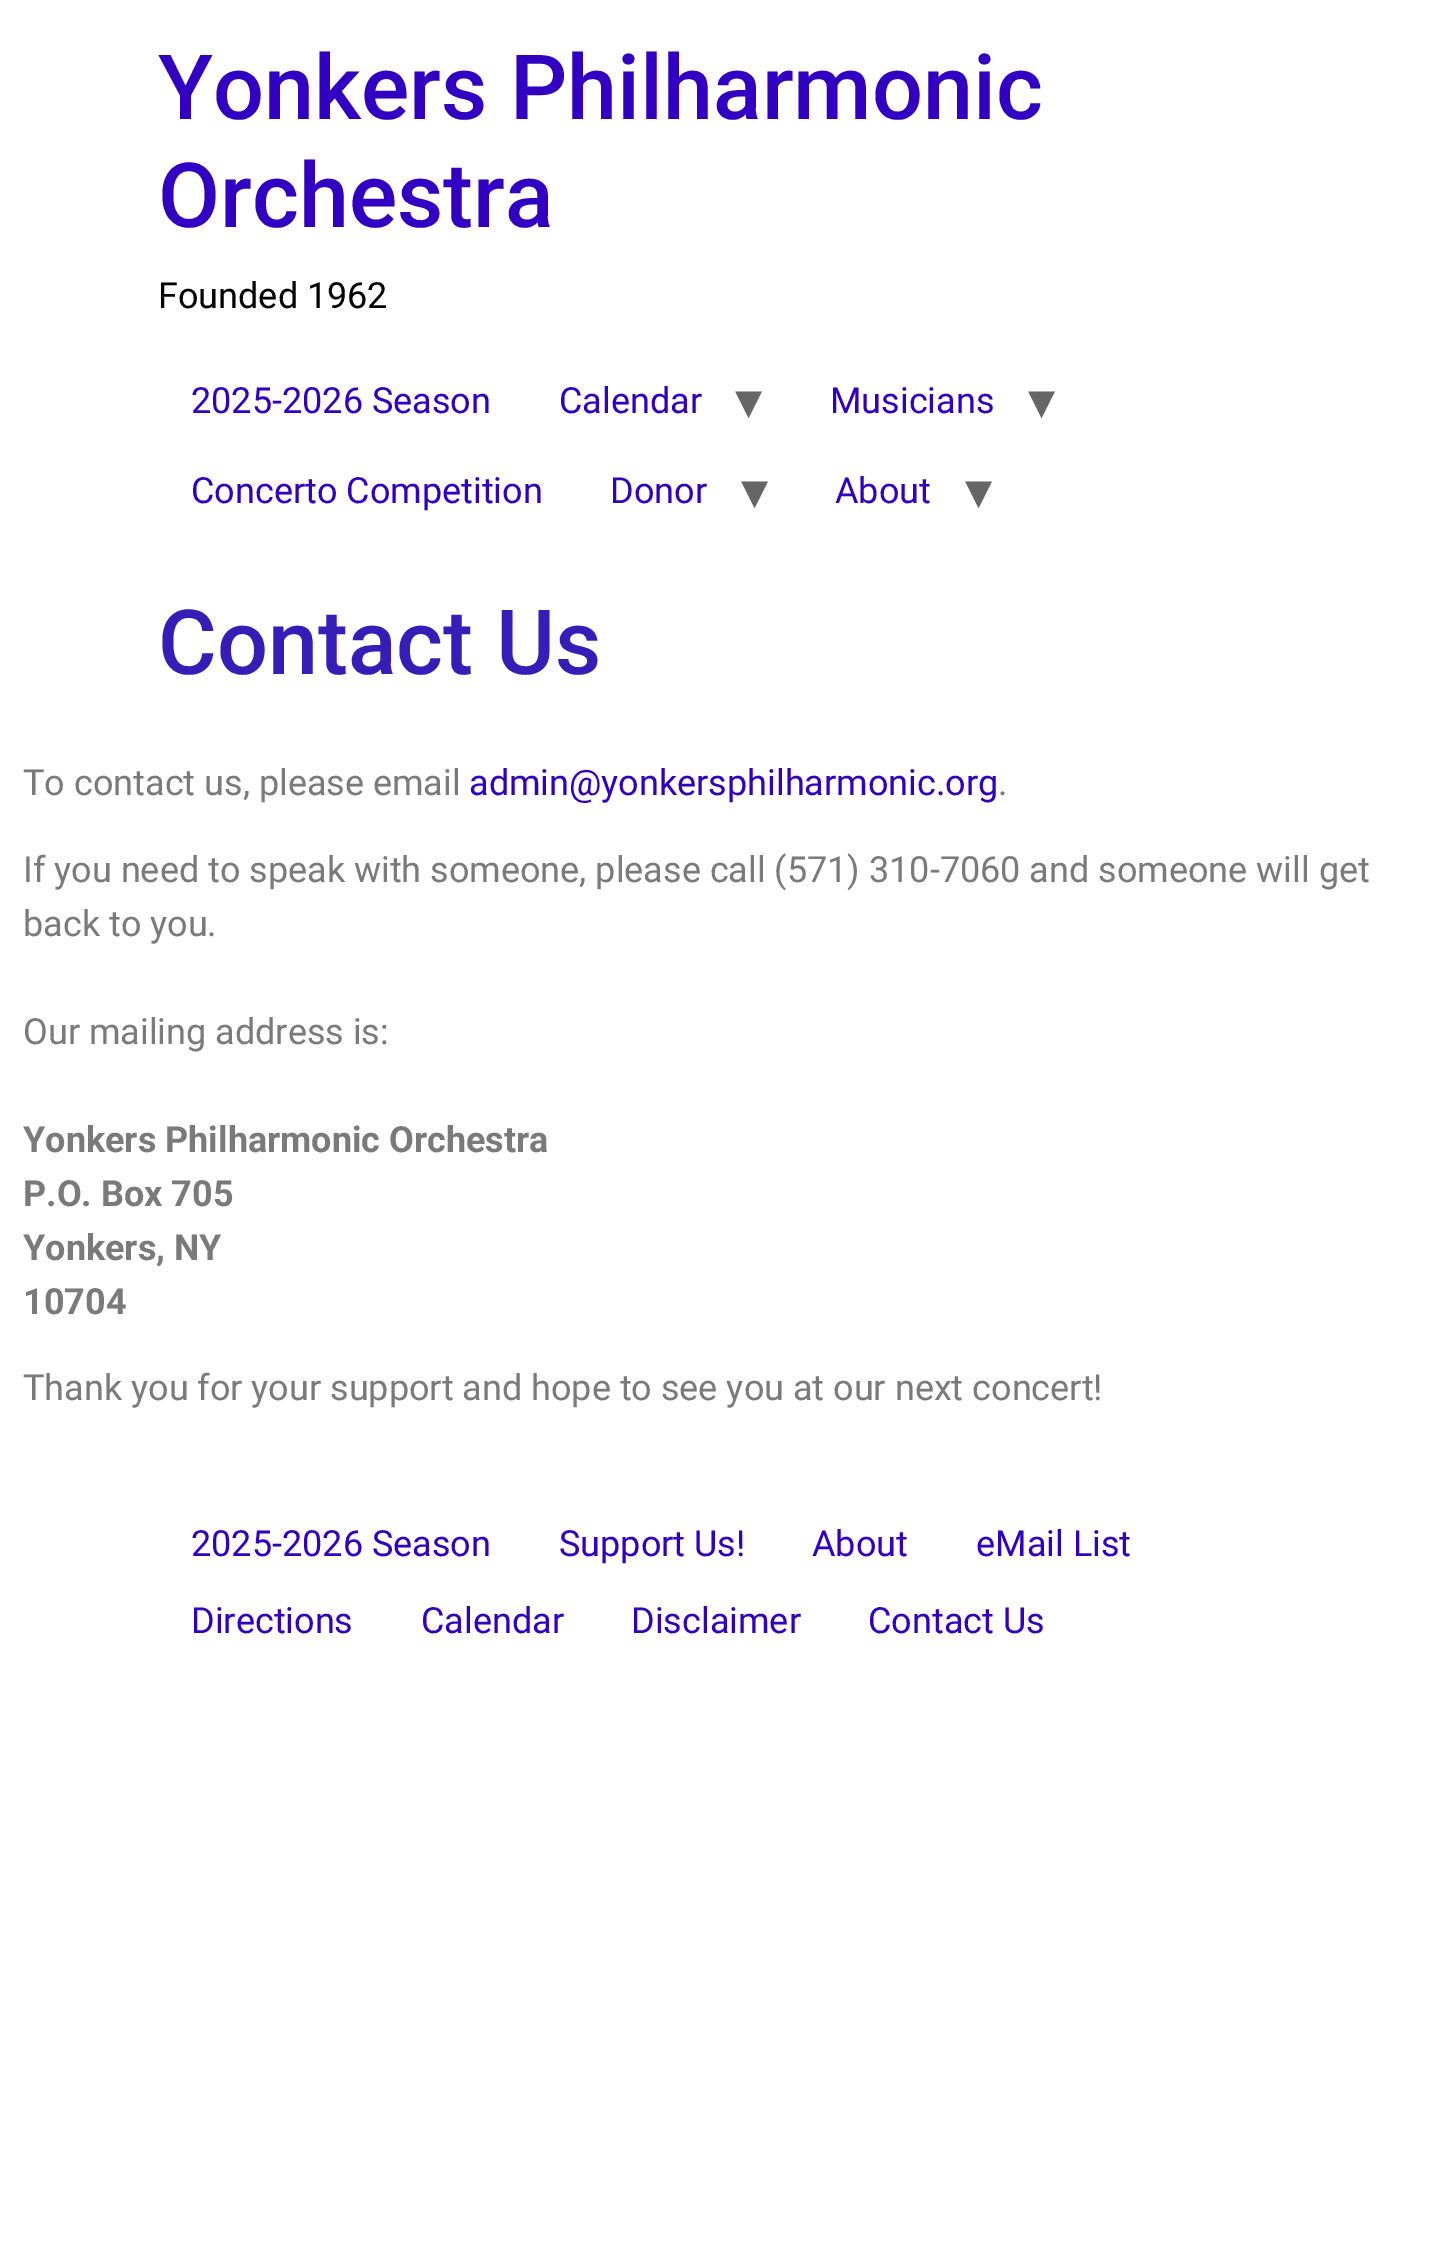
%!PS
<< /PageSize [1438 2265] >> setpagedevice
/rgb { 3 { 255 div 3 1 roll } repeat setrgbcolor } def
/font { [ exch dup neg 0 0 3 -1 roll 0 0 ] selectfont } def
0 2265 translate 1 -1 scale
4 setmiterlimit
255 255 255 rgb
0 0 1438 2265 rectfill
/Roboto-Medium 90 font
49 0 194 rgb
158 119 moveto (Yonkers Philharmonic) show
158 227 moveto (Orchestra) show
/Roboto-Regular 36 font
0 0 0 rgb
158 308 moveto (Founded 1962) show
49 0 194 rgb
191 413 moveto (2025-2026 Season) show
559 413 moveto (Calendar) show
/DejaVuSans-Regular 54 font
102 102 102 rgb
735 419 moveto (▾) show
/Roboto-Regular 36 font
49 0 194 rgb
830 413 moveto (Musicians) show
/DejaVuSans-Regular 54 font
102 102 102 rgb
1028 419 moveto (▾) show
/Roboto-Regular 36 font
49 0 194 rgb
191 503 moveto (Concerto Competition) show
610 503 moveto (Donor) show
/DejaVuSans-Regular 54 font
102 102 102 rgb
741 509 moveto (▾) show
/Roboto-Regular 36 font
49 0 194 rgb
835 503 moveto (About) show
/DejaVuSans-Regular 54 font
102 102 102 rgb
965 509 moveto (▾) show
/Roboto-Medium 90 font
55 29 183 rgb
158 674 moveto (Contact Us) show
/Roboto-Regular 36 font
122 122 122 rgb
23 795 moveto (To contact us, please email) show
49 0 194 rgb
469 795 moveto (admin@yonkersphilharmonic.org) show
122 122 122 rgb
[
  [(.) 998 795]
  [(If you need to speak with someone, please call \(571\) 310-7060 and someone will get) 23 882]
  [(back to you.) 23 936]
  [(Our mailing address is:) 23 1044]
] { aload pop moveto show } forall
/Roboto-Bold 36 font
[
  [(Yonkers Philharmonic Orchestra) 23 1152]
  [(P.O. Box 705) 23 1206]
  [(Yonkers, NY) 23 1260]
  [(10704) 23 1314]
] { aload pop moveto show } forall
/Roboto-Regular 36 font
23 1400 moveto (Thank you for your support and hope to see you at our next concert!) show
49 0 194 rgb
[
  [(2025-2026 Season) 191 1556]
  [(Support Us!) 559 1556]
  [(About) 812 1556]
  [(eMail List) 976 1556]
  [(Directions) 191 1633]
  [(Calendar) 421 1633]
  [(Disclaimer) 631 1633]
  [(Contact Us) 868 1633]
] { aload pop moveto show } forall
showpage
